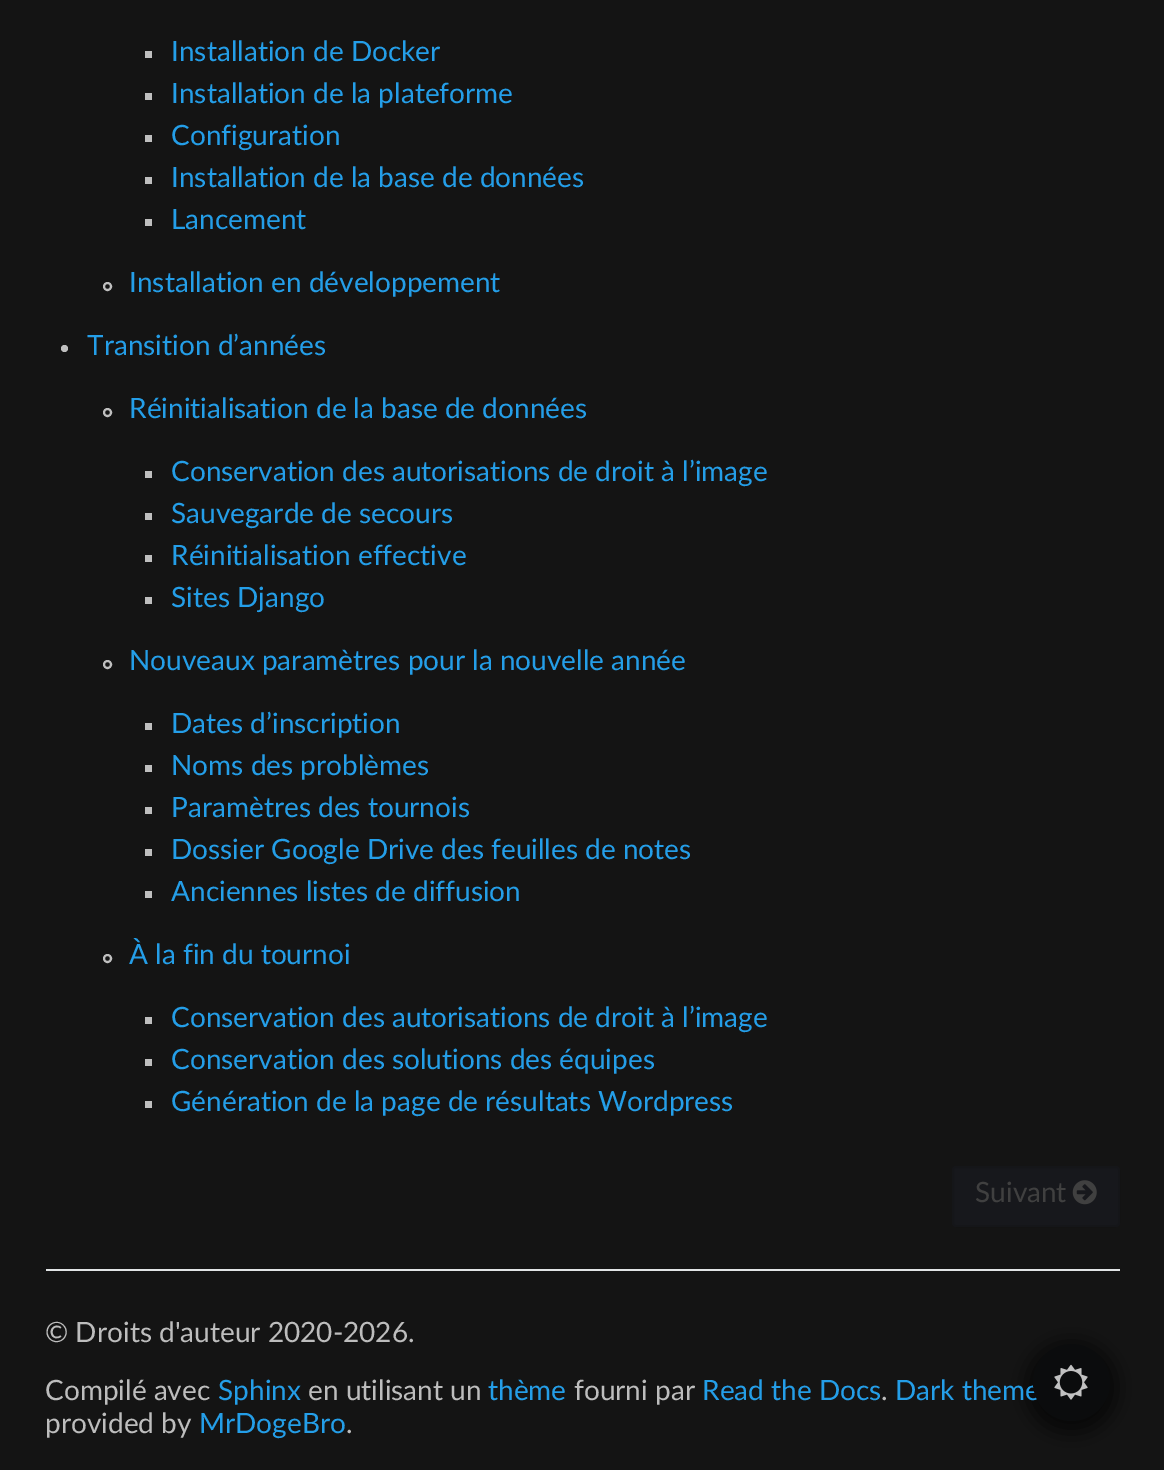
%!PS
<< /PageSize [1164 1470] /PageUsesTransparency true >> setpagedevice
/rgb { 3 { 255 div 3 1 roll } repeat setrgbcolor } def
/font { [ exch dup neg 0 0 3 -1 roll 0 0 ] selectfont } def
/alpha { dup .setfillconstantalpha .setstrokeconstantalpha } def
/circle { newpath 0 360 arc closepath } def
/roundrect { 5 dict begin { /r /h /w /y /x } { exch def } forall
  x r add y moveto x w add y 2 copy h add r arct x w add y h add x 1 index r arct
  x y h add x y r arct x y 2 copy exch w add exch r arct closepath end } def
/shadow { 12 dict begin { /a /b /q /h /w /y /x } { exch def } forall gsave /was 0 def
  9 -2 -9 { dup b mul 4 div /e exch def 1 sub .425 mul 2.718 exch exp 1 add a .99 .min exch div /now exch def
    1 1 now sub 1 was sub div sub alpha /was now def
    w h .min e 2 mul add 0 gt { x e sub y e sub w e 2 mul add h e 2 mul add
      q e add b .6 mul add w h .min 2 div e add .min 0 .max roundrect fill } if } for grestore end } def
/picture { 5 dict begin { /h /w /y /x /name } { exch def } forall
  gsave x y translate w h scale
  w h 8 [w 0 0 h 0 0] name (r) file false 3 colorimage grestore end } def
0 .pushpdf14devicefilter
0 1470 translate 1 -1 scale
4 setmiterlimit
20 20 20 rgb
0 0 1164 1470 rectfill
[
  [145 51 7 7 191 191 191]
  [145 93 7 7 191 191 191]
  [145 135 7 7 191 191 191]
  [145 177 7 7 191 191 191]
  [145 219 7 7 191 191 191]
] { aload pop rgb rectfill } forall
2 setlinewidth
107.5 286.5 3.5 circle stroke
64.5 348.5 3.5 circle fill
107.5 412.5 3.5 circle stroke
[
  [145 471 7 7 191 191 191]
  [145 513 7 7 191 191 191]
  [145 555 7 7 191 191 191]
  [145 597 7 7 191 191 191]
] { aload pop rgb rectfill } forall
107.5 664.5 3.5 circle stroke
[
  [145 723 7 7 191 191 191]
  [145 765 7 7 191 191 191]
  [145 807 7 7 191 191 191]
  [145 849 7 7 191 191 191]
  [145 891 7 7 191 191 191]
] { aload pop rgb rectfill } forall
107.5 958.5 3.5 circle stroke
[
  [145 1017 7 7 191 191 191]
  [145 1059 7 7 191 191 191]
  [145 1101 7 7 191 191 191]
] { aload pop rgb rectfill } forall
23 24 28 rgb
952 1166 168 61 4 roundrect fill
0.1 alpha
0 0 0 rgb
953 1167 166 59 3 roundrect stroke
1 alpha
(img/1.rgb) 1072 1180 25 25 picture
225 228 229 rgb
46 1269 1074 2 rectfill
0 0 0 rgb
1026 1342 91 91 45.5 12 0.62 shadow
/Lato-Regular 28 font
36 158 232 rgb
[
  [(Installation de Docker) 171 61]
  [(Installation de la plateforme) 171 103]
  [(Configuration) 171 145]
  [(Installation de la base de données) 171 187]
  [(Lancement) 171 229]
  [(Installation en développement) 129 292]
  [(Transition d’années) 87 355]
  [(Réinitialisation de la base de données) 129 418]
  [(Conservation des autorisations de droit à l’image) 171 481]
  [(Sauvegarde de secours) 171 523]
  [(Réinitialisation effective) 171 565]
  [(Sites Django) 171 607]
  [(Nouveaux paramètres pour la nouvelle année) 129 670]
  [(Dates d’inscription) 171 733]
  [(Noms des problèmes) 171 775]
  [(Paramètres des tournois) 171 817]
  [(Dossier Google Drive des feuilles de notes) 171 859]
  [(Anciennes listes de diffusion) 171 901]
  [(À la fin du tournoi) 129 964]
  [(Conservation des autorisations de droit à l’image) 171 1027]
  [(Conservation des solutions des équipes) 171 1069]
  [(Génération de la page de résultats Wordpress) 171 1111]
] { aload pop moveto show } forall
64 64 64 rgb
975 1202 moveto (Suivant) show
189 189 189 rgb
45 1342 moveto (© Droits d'auteur 2020-2026.) show
45 1400 moveto (Compilé avec) show
36 158 232 rgb
218 1400 moveto (Sphinx) show
189 189 189 rgb
308 1400 moveto (en utilisant un) show
36 158 232 rgb
488 1400 moveto (thème) show
189 189 189 rgb
574 1400 moveto (fourni par) show
36 158 232 rgb
702 1400 moveto (Read the Docs) show
189 189 189 rgb
881 1400 moveto (.) show
36 158 232 rgb
895 1400 moveto (Dark theme) show
189 189 189 rgb
45 1433 moveto (provided by) show
36 158 232 rgb
199 1433 moveto (MrDogeBro) show
189 189 189 rgb
346 1433 moveto (.) show
11 12 13 rgb
1071.5 1382.5 38.5 circle fill
(img/2.rgb) 1054 1364 34 36 picture
.poppdf14devicefilter showpage
